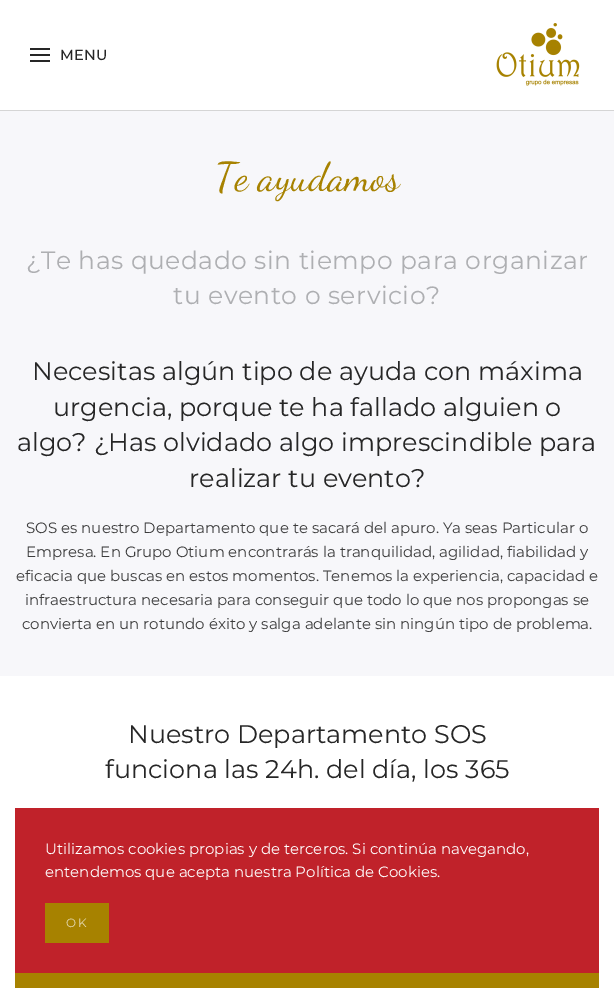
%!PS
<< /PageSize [614 988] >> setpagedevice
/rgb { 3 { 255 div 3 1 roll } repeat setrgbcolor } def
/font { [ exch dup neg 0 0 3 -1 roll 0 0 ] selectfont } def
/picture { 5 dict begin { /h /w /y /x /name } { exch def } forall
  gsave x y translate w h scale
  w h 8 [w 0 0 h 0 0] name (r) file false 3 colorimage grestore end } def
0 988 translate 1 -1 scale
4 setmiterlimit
255 255 255 rgb
0 0 614 988 rectfill
[
  [0 110 614 1 213 213 213]
  [30 48 20 2 38 38 38]
  [30 54 20 2 38 38 38]
  [30 60 20 2 38 38 38]
] { aload pop rgb rectfill } forall
(img/1.rgb) 496 23 84 63 picture
[
  [0 111 614 565 247 247 250]
  [15 973 584 15 167 130 0]
  [15 808 584 165 192 34 42]
  [45 903 64 40 167 130 0]
] { aload pop rgb rectfill } forall
/Montserrat-Bold 14 font
38 38 38 rgb
60 60 moveto 0.5 0 (MENU) ashow
/DancingScript-Regular 40 font
167 130 0 rgb
215 190 moveto (Te ayudamos) show
/Montserrat-Regular 25 font
174 175 178 rgb
26 269 moveto 0.5 0 (¿Te has quedado sin tiempo para organizar) ashow
173 304 moveto 0.5 0 (tu evento o servicio?) ashow
/Montserrat-Regular 25.5 font
38 38 38 rgb
[
  [(Necesitas algún tipo de ayuda con máxima) 32 380]
  [(urgencia, porque te ha fallado alguien o) 53 416]
  [(algo? ¿Has olvidado algo imprescindible para) 17 451]
  [(realizar tu evento?) 189 487]
] { aload pop moveto show } forall
/Montserrat-Regular 15 font
60 60 60 rgb
[
  [(SOS es nuestro Departamento que te sacará del apuro. Ya seas Particular o) 26 533]
  [(Empresa. En Grupo Otium encontrarás la tranquilidad, agilidad, fiabilidad y) 26 557]
  [(eficacia que buscas en estos momentos. Tenemos la experiencia, capacidad e) 16 581]
  [(infraestructura necesaria para conseguir que todo lo que nos propongas se) 25 605]
  [(convierta en un rotundo éxito y salga adelante sin ningún tipo de problema.) 22 629]
] { aload pop moveto show } forall
/Montserrat-Regular 25.5 font
38 38 38 rgb
128 743 moveto (Nuestro Departamento SOS) show
105 778 moveto (funciona las 24h. del día, los 365) show
/Montserrat-Regular 15 font
255 255 255 rgb
45 854 moveto (Utilizamos cookies propias y de terceros. Si continúa navegando,) show
45 877 moveto (entendemos que acepta nuestra Política de Cookies.) show
/Montserrat-Regular 12 font
229 218 179 rgb
66 927 moveto 2 0 (OK) ashow
showpage
